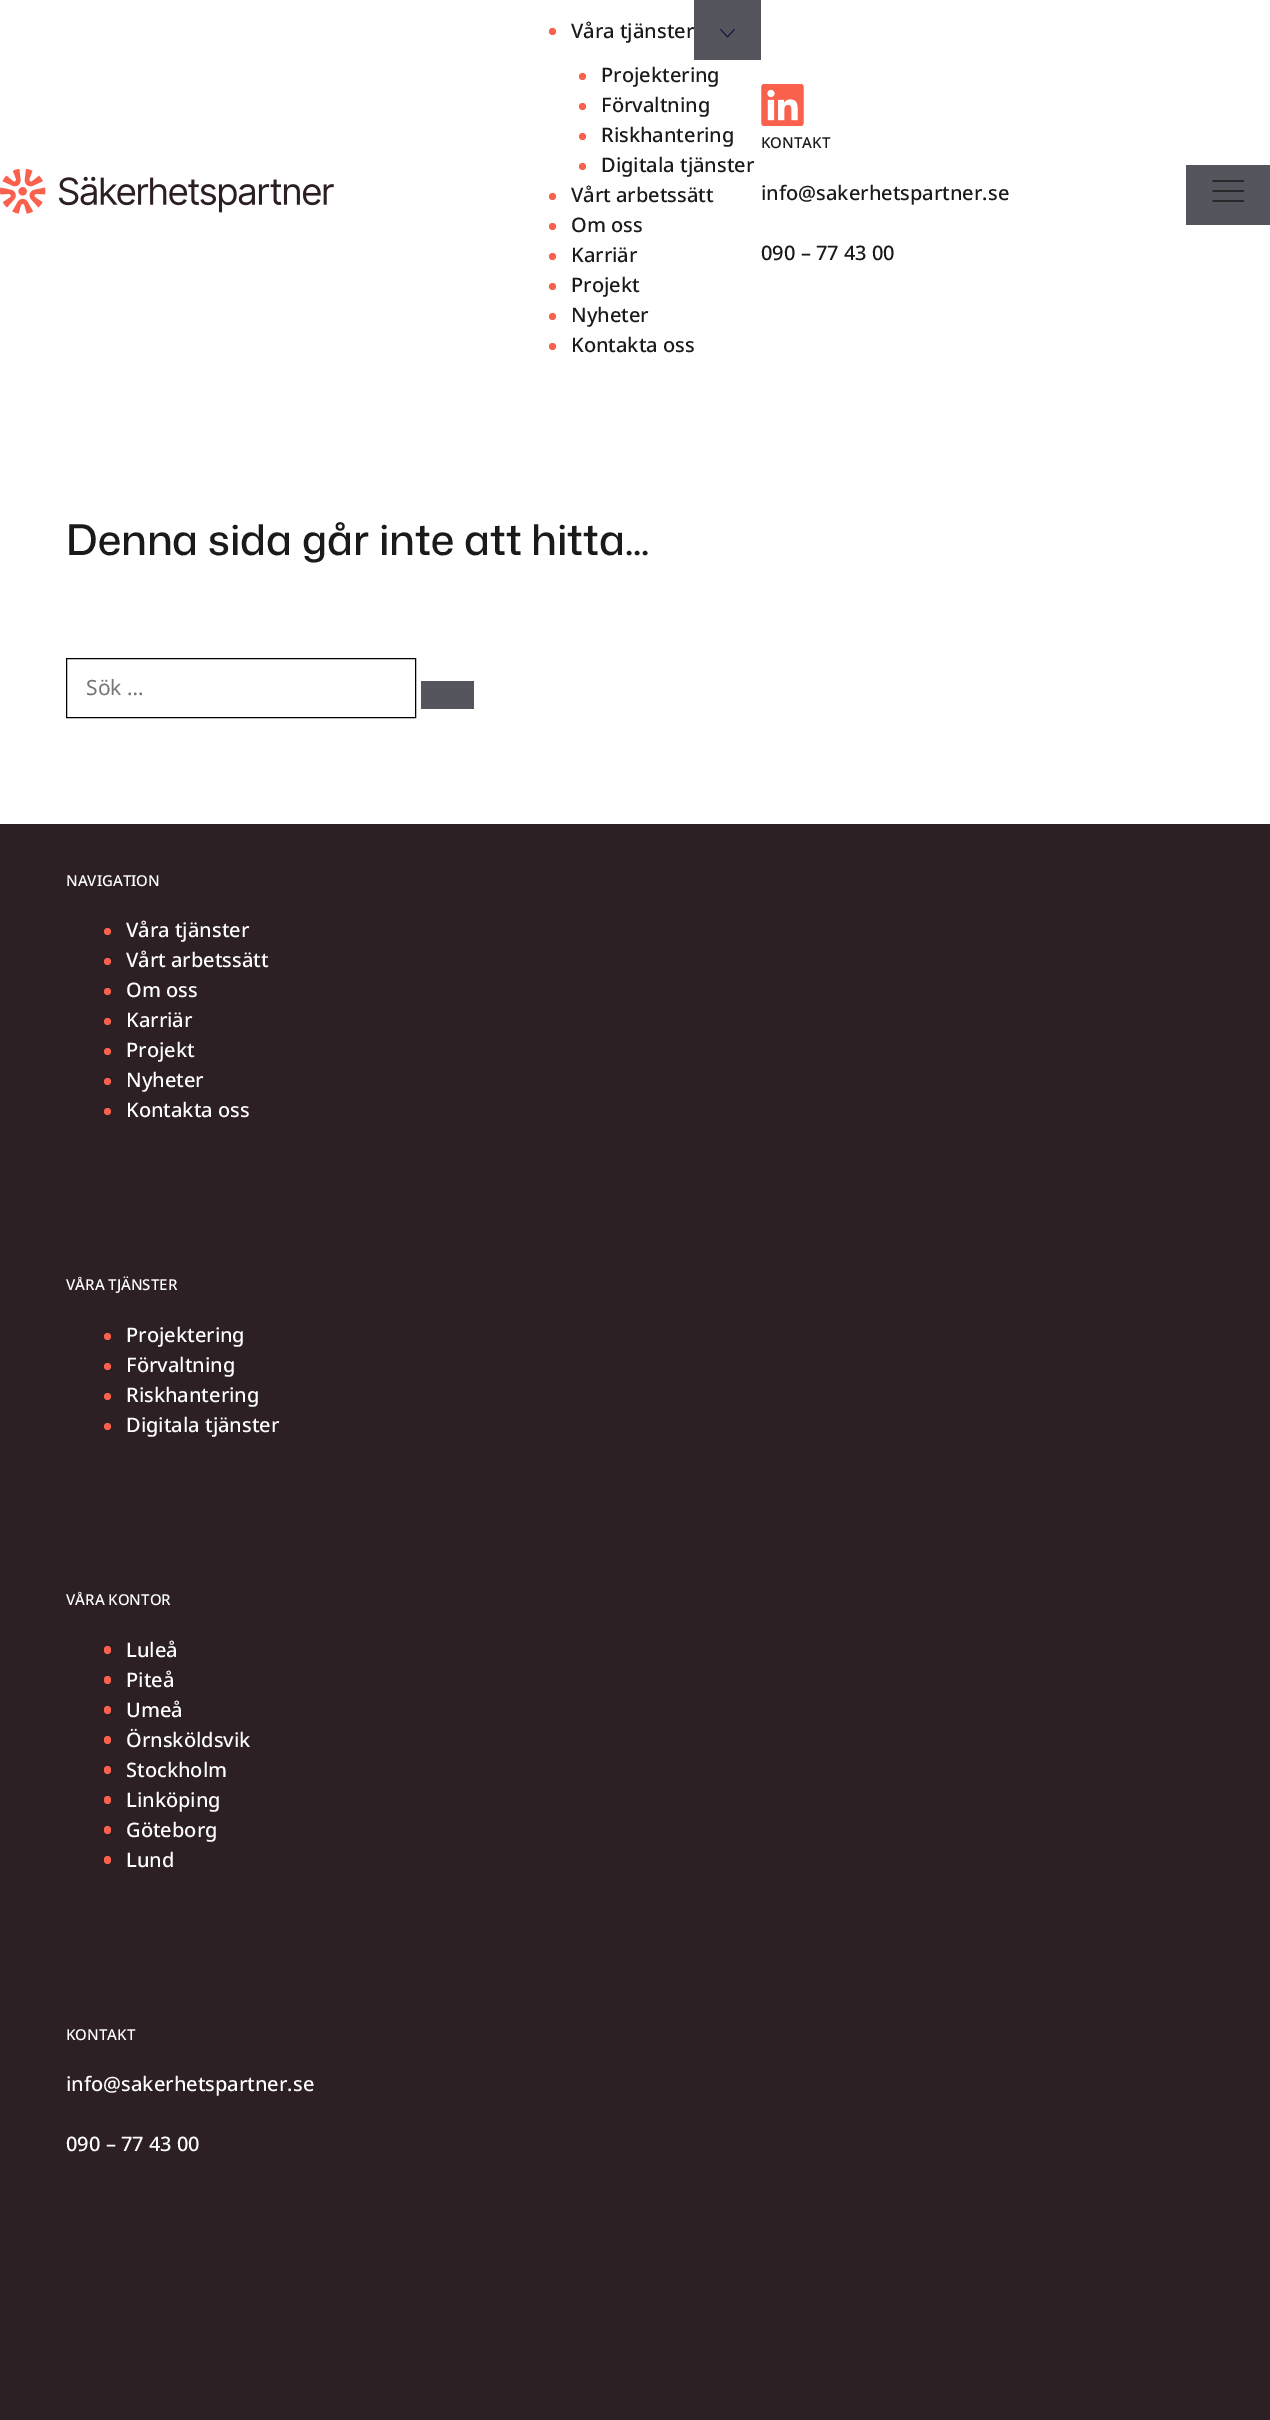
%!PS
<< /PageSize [1270 2420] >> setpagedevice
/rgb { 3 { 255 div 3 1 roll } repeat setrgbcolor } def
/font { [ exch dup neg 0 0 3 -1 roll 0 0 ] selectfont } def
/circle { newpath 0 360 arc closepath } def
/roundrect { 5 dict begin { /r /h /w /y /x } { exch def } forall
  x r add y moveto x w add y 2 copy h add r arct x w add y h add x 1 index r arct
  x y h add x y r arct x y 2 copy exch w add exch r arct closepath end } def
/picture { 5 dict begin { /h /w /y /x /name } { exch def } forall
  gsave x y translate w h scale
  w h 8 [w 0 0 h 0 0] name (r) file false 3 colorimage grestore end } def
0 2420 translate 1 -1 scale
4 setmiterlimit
255 255 255 rgb
0 0 1270 2420 rectfill
(img/1.rgb) 0 169 334 45 picture
249 97 77 rgb
552.5 31.5 3.5 circle fill
85 85 94 rgb
694 0 67 60 rectfill
(img/2.rgb) 720 29 15 9 picture
249 97 77 rgb
582.5 76.5 3.5 circle fill
582.5 106.5 3.5 circle fill
582.5 136.5 3.5 circle fill
582.5 166.5 3.5 circle fill
552.5 196.5 3.5 circle fill
552.5 226.5 3.5 circle fill
552.5 256.5 3.5 circle fill
552.5 286.5 3.5 circle fill
552.5 316.5 3.5 circle fill
552.5 346.5 3.5 circle fill
(img/3.rgb) 761 84 43 42 picture
85 85 94 rgb
1186 165 84 60 rectfill
26 26 26 rgb
1.2 setlinewidth
1244 181 moveto 1212.5 181 lineto 1244 191 moveto 1212.5 191 lineto 1244 201 moveto 1212.5 201 lineto stroke
0 0 0 rgb
1 setlinewidth
66.5 658.5 349 59 rectstroke
85 85 94 rgb
421 681 53 28 rectfill
44 32 36 rgb
0 824 1270 1596 rectfill
249 97 77 rgb
107.5 931.5 3.5 circle fill
107.5 961.5 3.5 circle fill
107.5 991.5 3.5 circle fill
107.5 1021.5 3.5 circle fill
107.5 1051.5 3.5 circle fill
107.5 1081.5 3.5 circle fill
107.5 1111.5 3.5 circle fill
107.5 1336.5 3.5 circle fill
107.5 1366.5 3.5 circle fill
107.5 1396.5 3.5 circle fill
107.5 1426.5 3.5 circle fill
104 1646 7 8 3.5 roundrect fill
104 1676 7 8 3.5 roundrect fill
104 1706 7 8 3.5 roundrect fill
104 1736 7 8 3.5 roundrect fill
104 1766 7 8 3.5 roundrect fill
104 1796 7 8 3.5 roundrect fill
104 1826 7 8 3.5 roundrect fill
104 1856 7 8 3.5 roundrect fill
/NotoSans-Medium 20 font
26 26 26 rgb
[
  [(Våra tjänster) 571 38]
  [(Projektering) 601 82]
  [(Förvaltning) 601 112]
  [(Riskhantering) 601 142]
  [(Digitala tjänster) 601 172]
  [(Vårt arbetssätt) 571 202]
  [(Om oss) 571 232]
  [(Karriär) 571 262]
  [(Projekt) 571 292]
  [(Nyheter) 571 322]
  [(Kontakta oss) 571 352]
] { aload pop moveto show } forall
/NotoSans-Medium 15 font
761 148 moveto (KONTAKT) show
/NotoSans-Medium 20 font
761 200 moveto (info@sakerhetspartner.se) show
761 260 moveto (090 – 77 43 00) show
/MonaSans-Medium 42.25 font
66 555 moveto (Denna sida går inte att hitta...) show
/NotoSans-Regular 21 font
117 117 117 rgb
86 695 moveto (Sök …) show
/NotoSans-Medium 15 font
255 255 255 rgb
66 886 moveto (NAVIGATION) show
/NotoSans-Medium 20 font
[
  [(Våra tjänster) 126 937]
  [(Vårt arbetssätt) 126 967]
  [(Om oss) 126 997]
  [(Karriär) 126 1027]
  [(Projekt) 126 1057]
  [(Nyheter) 126 1087]
  [(Kontakta oss) 126 1117]
] { aload pop moveto show } forall
/NotoSans-Medium 15 font
66 1290 moveto (VÅRA TJÄNSTER) show
/NotoSans-Medium 20 font
[
  [(Projektering) 126 1342]
  [(Förvaltning) 126 1372]
  [(Riskhantering) 126 1402]
  [(Digitala tjänster) 126 1432]
] { aload pop moveto show } forall
/NotoSans-Medium 15 font
66 1605 moveto (VÅRA KONTOR) show
/NotoSans-Medium 20 font
[
  [(Luleå) 126 1657]
  [(Piteå) 126 1687]
  [(Umeå) 126 1717]
  [(Örnsköldsvik) 126 1747]
  [(Stockholm) 126 1777]
  [(Linköping) 126 1807]
  [(Göteborg) 126 1837]
  [(Lund) 126 1867]
] { aload pop moveto show } forall
/NotoSans-Medium 15 font
66 2040 moveto (KONTAKT) show
/NotoSans-Medium 20 font
66 2091 moveto (info@sakerhetspartner.se) show
66 2151 moveto (090 – 77 43 00) show
showpage
